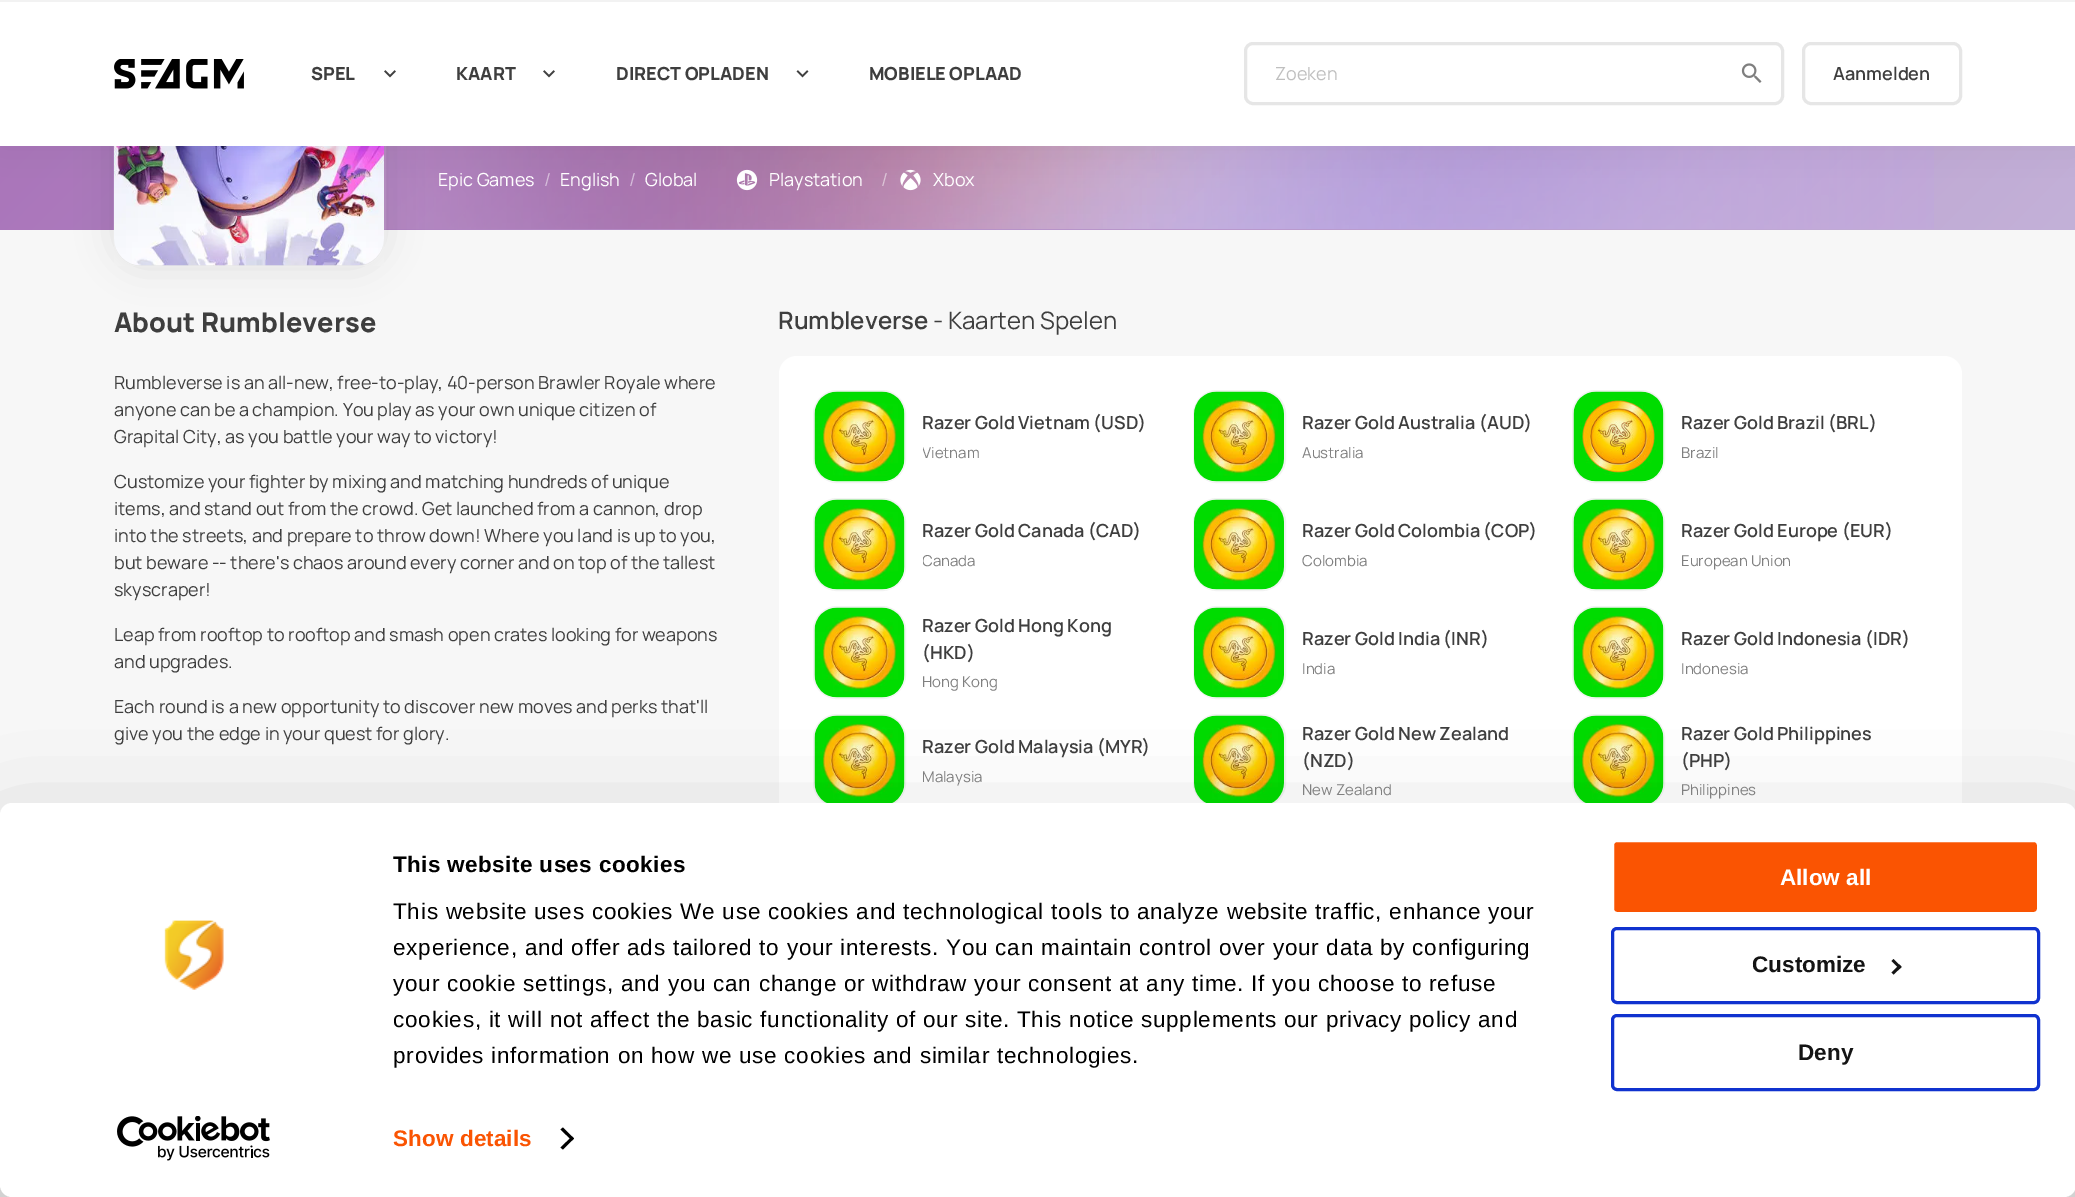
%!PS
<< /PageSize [2075 1197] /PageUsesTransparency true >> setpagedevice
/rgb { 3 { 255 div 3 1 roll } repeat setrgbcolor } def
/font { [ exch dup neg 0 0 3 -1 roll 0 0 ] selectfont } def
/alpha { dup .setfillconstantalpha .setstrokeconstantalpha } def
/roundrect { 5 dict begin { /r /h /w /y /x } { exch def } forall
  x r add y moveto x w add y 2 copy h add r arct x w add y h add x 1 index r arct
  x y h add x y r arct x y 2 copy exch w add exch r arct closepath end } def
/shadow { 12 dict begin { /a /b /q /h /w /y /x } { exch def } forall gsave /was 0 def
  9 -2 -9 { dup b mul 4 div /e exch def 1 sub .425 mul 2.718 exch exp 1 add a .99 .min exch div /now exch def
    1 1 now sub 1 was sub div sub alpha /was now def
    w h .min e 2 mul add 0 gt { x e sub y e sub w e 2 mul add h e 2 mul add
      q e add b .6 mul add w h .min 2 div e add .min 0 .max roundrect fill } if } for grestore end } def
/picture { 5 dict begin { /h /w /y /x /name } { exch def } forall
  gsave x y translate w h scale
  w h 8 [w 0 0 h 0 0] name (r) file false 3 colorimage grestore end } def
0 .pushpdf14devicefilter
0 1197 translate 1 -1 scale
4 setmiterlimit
247 247 247 rgb
0 0 2075 1197 rectfill
gsave 0 146 moveto 2075 146 lineto 2075 230 lineto 0 230 lineto closepath clip newpath
<< /ShadingType 2 /ColorSpace /DeviceRGB /Coords [429 -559 1647 658] /Extend [true true] /Function << /FunctionType 2 /Domain [0 1] /C0 [0.655 0.427 0.714] /C1 [0.765 0.694 0.847] /N 1 >> >> shfill grestore
(img/5.rgb) 384 146 1550 83 picture
0 0 0 rgb
114 -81 270 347 27 18 0.1 shadow
0.1 alpha
255 255 255 rgb
2 setlinewidth
114 -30 271 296 28 roundrect stroke
0.05 alpha
0 0 0 rgb
114 239 270 27 rectfill
1 alpha
(img/6.rgb) 114 146 270 120 picture
(img/7.rgb) 736 169 22 22 picture
(img/8.rgb) 900 169 21 22 picture
0 -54 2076 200 0 18 0.05 shadow
255 255 255 rgb
0 2 2075 144 rectfill
242 242 242 rgb
0 0 2075 2 rectfill
(img/1.rgb) 114 59 130 30 picture
(img/2.rgb) 384 70 12 8 picture
(img/2.rgb) 543 70 12 8 picture
(img/3.rgb) 796 70 13 8 picture
230 230 230 rgb
3 setlinewidth
1245.5 43.5 537 60 7.5 roundrect stroke
(img/4.rgb) 1741 63 21 20 picture
1803.5 43.5 157 60 7.5 roundrect stroke
255 255 255 rgb
779 356 1183 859 18 roundrect fill
242 242 242 rgb
2 setlinewidth
814 391 91 91 23 roundrect stroke
255 255 255 rgb
815 392 90 90 23 roundrect fill
(img/9.rgb) 814 391 91 91 picture
242 242 242 rgb
1194 391 91 91 23 roundrect stroke
255 255 255 rgb
1194 392 90 90 23 roundrect fill
(img/10.rgb) 1194 391 90 91 picture
242 242 242 rgb
1573 391 91 91 23 roundrect stroke
255 255 255 rgb
1574 392 90 90 23 roundrect fill
(img/11.rgb) 1573 391 91 91 picture
242 242 242 rgb
814 499 91 91 23 roundrect stroke
255 255 255 rgb
815 500 90 90 23 roundrect fill
(img/9.rgb) 814 499 91 91 picture
242 242 242 rgb
1194 499 91 91 23 roundrect stroke
255 255 255 rgb
1194 500 90 90 23 roundrect fill
(img/10.rgb) 1194 499 90 91 picture
242 242 242 rgb
1573 499 91 91 23 roundrect stroke
255 255 255 rgb
1574 500 90 90 23 roundrect fill
(img/9.rgb) 1573 499 91 91 picture
242 242 242 rgb
814 607 91 91 23 roundrect stroke
255 255 255 rgb
815 608 90 90 23 roundrect fill
(img/9.rgb) 814 607 91 91 picture
242 242 242 rgb
1194 607 91 91 23 roundrect stroke
255 255 255 rgb
1194 608 90 90 23 roundrect fill
(img/10.rgb) 1194 607 90 91 picture
242 242 242 rgb
1573 607 91 91 23 roundrect stroke
255 255 255 rgb
1574 608 90 90 23 roundrect fill
(img/9.rgb) 1573 607 91 91 picture
242 242 242 rgb
814 715 91 91 23 roundrect stroke
255 255 255 rgb
815 716 90 90 23 roundrect fill
(img/12.rgb) 814 715 91 88 picture
242 242 242 rgb
1194 715 91 91 23 roundrect stroke
255 255 255 rgb
1194 716 90 90 23 roundrect fill
(img/13.rgb) 1194 715 90 88 picture
242 242 242 rgb
1573 715 91 91 23 roundrect stroke
255 255 255 rgb
1574 716 90 90 23 roundrect fill
(img/12.rgb) 1573 715 91 88 picture
0 0 0 rgb
0 848 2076 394 12 52.5 0.3 shadow
255 255 255 rgb
0 803 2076 394 12 roundrect fill
(img/14.rgb) 164 920 60 70 picture
(img/15.rgb) 117 1116 153 45 picture
0 0 0 rgb
563 1127.5 moveto 574 1138.5 lineto 572 1140.5 lineto 560.5 1129.5 lineto closepath fill
572 1136.5 moveto 574 1138.5 lineto 563 1149.5 lineto 560.5 1147.5 lineto closepath fill
250 84 2 rgb
1612.5 840.5 426 73 4.5 roundrect gsave fill grestore
255 255 255 rgb
3 setlinewidth
stroke
16 50 207 rgb
1612.5 928.5 426 74 4.5 roundrect stroke
20 20 20 rgb
1893.5 959 moveto 1901.5 967 lineto 1899.5 969 lineto 1891.5 961 lineto closepath fill
1899.5 964.5 moveto 1901.5 967 lineto 1893.5 974.5 lineto 1891.5 972.5 lineto closepath fill
16 50 207 rgb
1612.5 1015.5 426 74 4.5 roundrect stroke
/Manrope-ExtraBold 18 font
62 62 62 rgb
[
  [(SPEL) 311 80]
  [(KAART) 456 80]
  [(DIRECT OPLADEN) 616 80]
  [(MOBIELE OPLAAD) 869 80]
] { aload pop moveto show } forall
/Manrope-Regular 18 font
191 191 191 rgb
1275 80 moveto (Zoeken) show
/Manrope-SemiBold 18 font
62 62 62 rgb
1833 80 moveto (Aanmelden) show
/Manrope-Regular 18 font
255 255 255 rgb
438 186 moveto (Epic Games) show
213 188 218 rgb
544 186 moveto (/) show
255 255 255 rgb
560 186 moveto (English) show
213 188 218 rgb
629 186 moveto (/) show
255 255 255 rgb
645 186 moveto (Global) show
769 186 moveto (Playstation) show
219 195 214 rgb
881 186 moveto (/) show
255 255 255 rgb
933 186 moveto (Xbox) show
/Manrope-ExtraBold 27 font
62 62 62 rgb
114 332 moveto (About Rumbleverse) show
/Manrope-Regular 18 font
[
  [(Rumbleverse is an all-new, free-to-play, 40-person Brawler Royale where) 114 389]
  [(anyone can be a champion. You play as your own unique citizen of) 114 416]
  [(Grapital City, as you battle your way to victory!) 114 443]
  [(Customize your fighter by mixing and matching hundreds of unique) 114 488]
  [(items, and stand out from the crowd. Get launched from a cannon, drop) 114 515]
  [(into the streets, and prepare to throw down! Where you land is up to you,) 114 542]
  [(but beware -- there's chaos around every corner and on top of the tallest) 114 569]
  [(skyscraper!) 114 596]
  [(Leap from rooftop to rooftop and smash open crates looking for weapons) 114 641]
  [(and upgrades.) 114 668]
  [(Each round is a new opportunity to discover new moves and perks that'll) 114 713]
  [(give you the edge in your quest for glory.) 114 740]
] { aload pop moveto show } forall
/Manrope-SemiBold 24 font
778 329 moveto (Rumbleverse) show
/Manrope-Regular 24 font
933 329 moveto (- Kaarten Spelen) show
/Manrope-SemiBold 18 font
922 429 moveto (Razer Gold Vietnam \(USD\)) show
gsave
923 441 57 23 rectclip
/Manrope-Regular 15 font
128 128 128 rgb
922 458 moveto (Vietnam) show
grestore
1302 429 moveto (Razer Gold Australia \(AUD\)) show
/Manrope-Regular 15 font
128 128 128 rgb
1302 458 moveto (Australia) show
/Manrope-SemiBold 18 font
62 62 62 rgb
1681 429 moveto (Razer Gold Brazil \(BRL\)) show
/Manrope-Regular 15 font
128 128 128 rgb
1681 458 moveto (Brazil) show
/Manrope-SemiBold 18 font
62 62 62 rgb
922 537 moveto (Razer Gold Canada \(CAD\)) show
gsave
923 549 52 23 rectclip
/Manrope-Regular 15 font
128 128 128 rgb
922 566 moveto (Canada) show
grestore
1302 537 moveto (Razer Gold Colombia \(COP\)) show
/Manrope-Regular 15 font
128 128 128 rgb
1302 566 moveto (Colombia) show
/Manrope-SemiBold 18 font
62 62 62 rgb
1681 537 moveto (Razer Gold Europe \(EUR\)) show
/Manrope-Regular 15 font
128 128 128 rgb
1681 566 moveto (European Union) show
/Manrope-SemiBold 18 font
62 62 62 rgb
922 632 moveto (Razer Gold Hong Kong) show
922 659 moveto (\(HKD\)) show
gsave
923 671 75 22 rectclip
/Manrope-Regular 15 font
128 128 128 rgb
922 687 moveto (Hong Kong) show
grestore
1302 645 moveto (Razer Gold India \(INR\)) show
/Manrope-Regular 15 font
128 128 128 rgb
1302 674 moveto (India) show
/Manrope-SemiBold 18 font
62 62 62 rgb
1681 645 moveto (Razer Gold Indonesia \(IDR\)) show
/Manrope-Regular 15 font
128 128 128 rgb
1681 674 moveto (Indonesia) show
/Manrope-SemiBold 18 font
62 62 62 rgb
922 753 moveto (Razer Gold Malaysia \(MYR\)) show
gsave
923 765 60 23 rectclip
/Manrope-Regular 15 font
128 128 128 rgb
922 782 moveto (Malaysia) show
grestore
1302 740 moveto (Razer Gold New Zealand) show
1302 767 moveto (\(NZD\)) show
/Manrope-Regular 15 font
128 128 128 rgb
1302 795 moveto (New Zealand) show
/Manrope-SemiBold 18 font
62 62 62 rgb
1681 740 moveto (Razer Gold Philippines) show
1681 767 moveto (\(PHP\)) show
/Manrope-Regular 15 font
128 128 128 rgb
1681 795 moveto (Philippines) show
/LiberationSans-Bold 22.5 font
0 0 0 rgb
393 872 moveto 0.4 0 (This website uses cookies) ashow
/LiberationSans-Regular 22.5 font
393 919 moveto 0.75 0 (This website uses cookies We use cookies and technological tools to analyze website traffic, enhance your) ashow
393 955 moveto 0.75 0 (experience, and offer ads tailored to your interests. You can maintain control over your data by configuring) ashow
393 991 moveto 0.75 0 (your cookie settings, and you can change or withdraw your consent at any time. If you choose to refuse) ashow
393 1027 moveto 0.75 0 (cookies, it will not affect the basic functionality of our site. This notice supplements our privacy policy and) ashow
393 1063 moveto 0.75 0 (provides information on how we use cookies and similar technologies.) ashow
/LiberationSans-Bold 22.5 font
250 84 2 rgb
393 1146 moveto 0.1 0 (Show details) ashow
255 255 255 rgb
1780 885 moveto (Allow all) show
20 20 20 rgb
1752 972 moveto (Customize) show
1798 1060 moveto (Deny) show
.poppdf14devicefilter showpage
